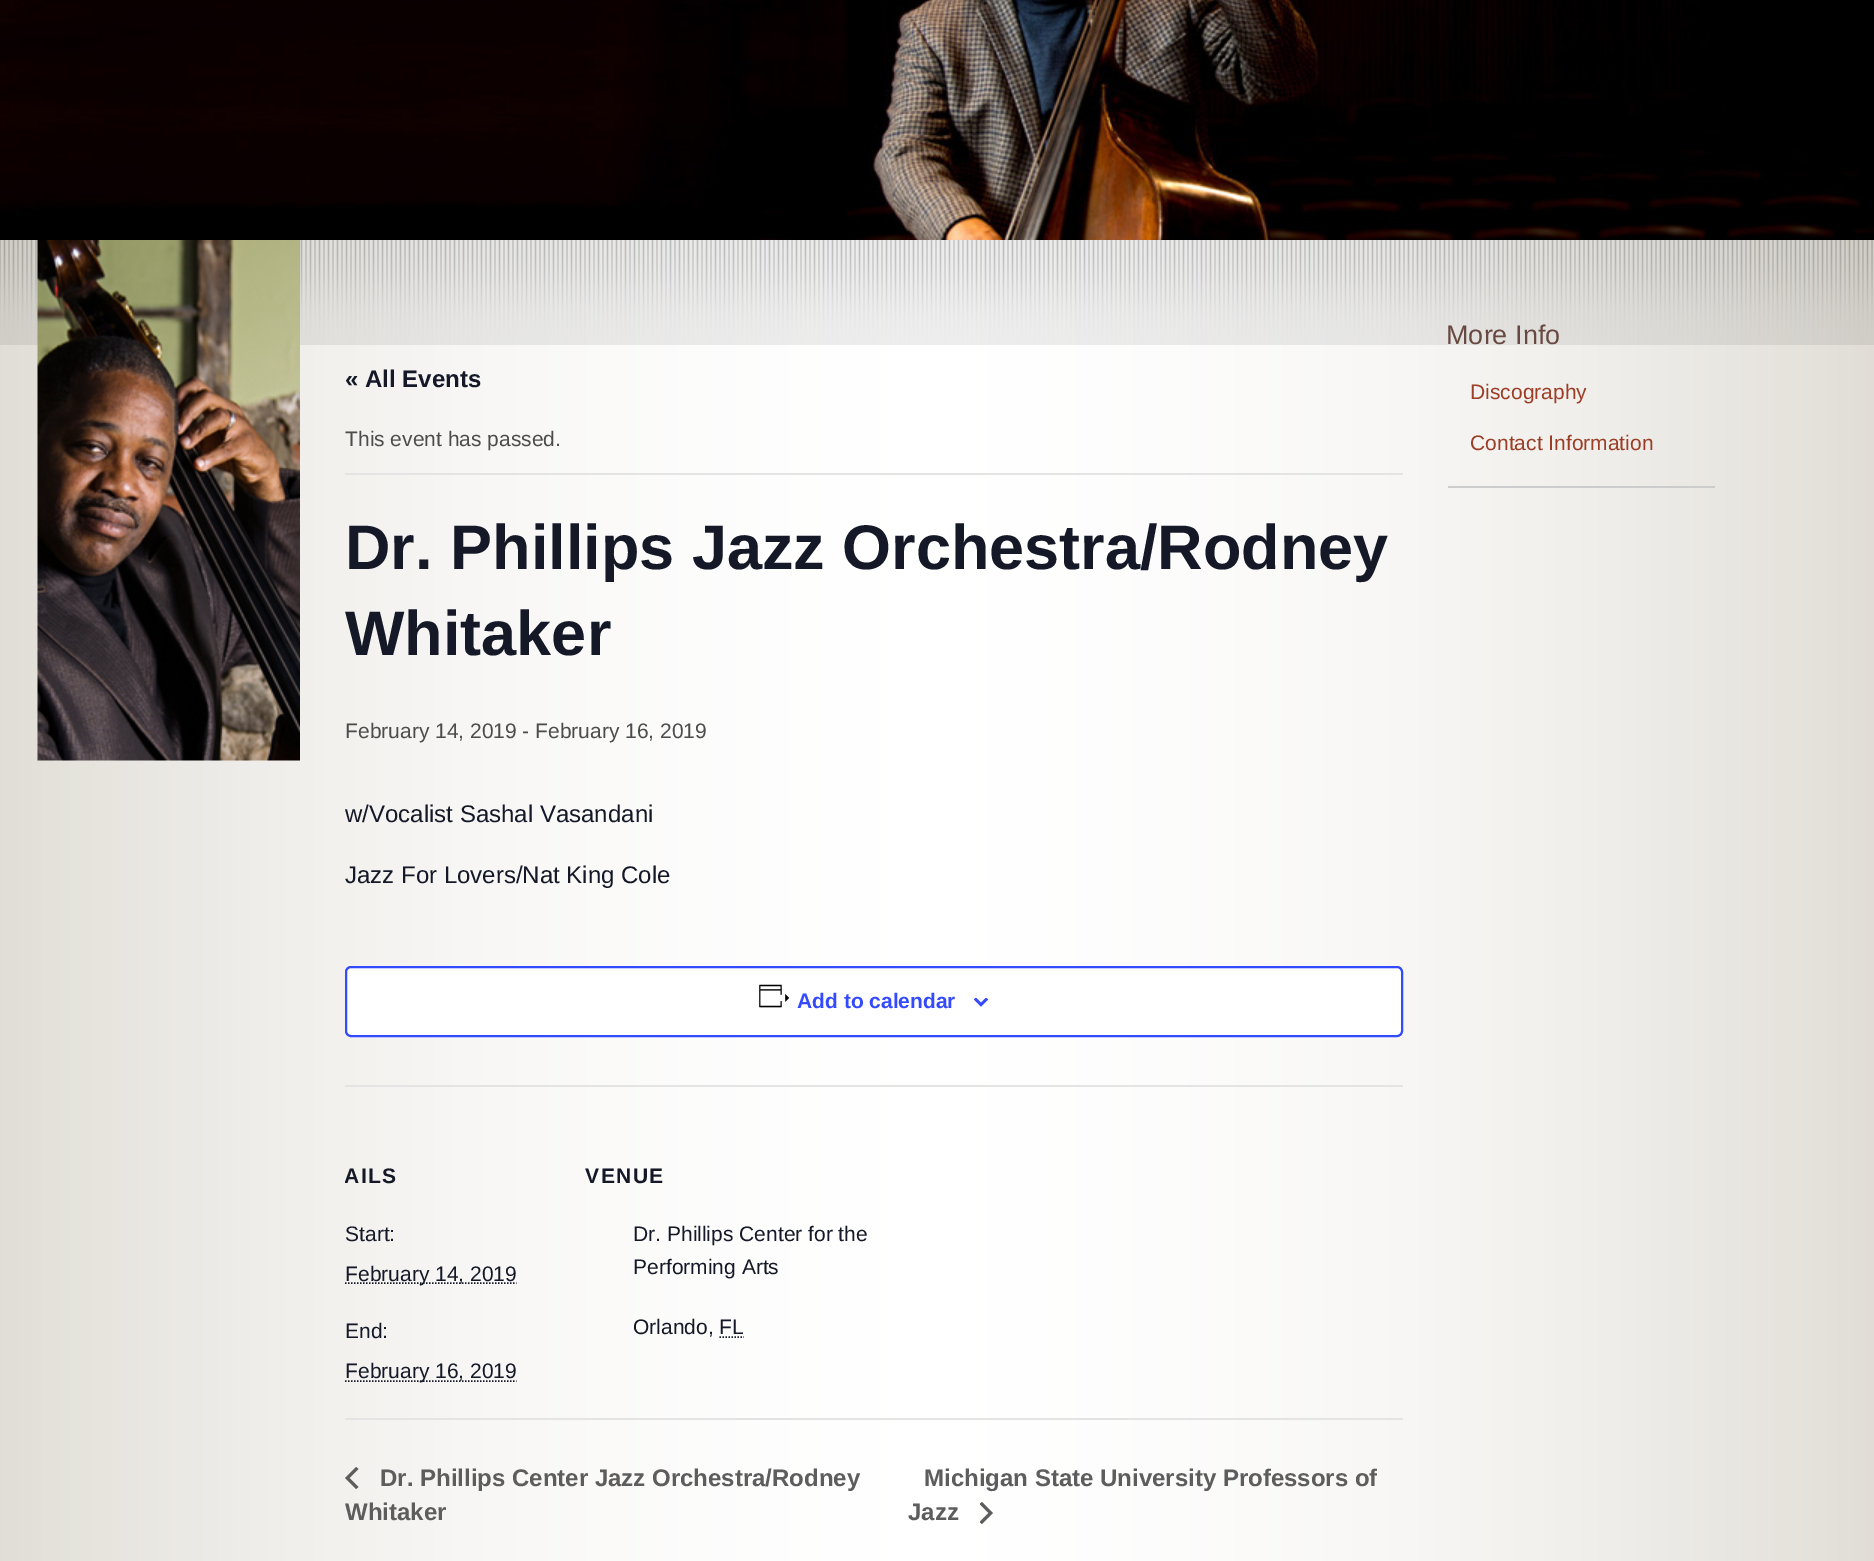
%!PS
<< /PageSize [1874 1561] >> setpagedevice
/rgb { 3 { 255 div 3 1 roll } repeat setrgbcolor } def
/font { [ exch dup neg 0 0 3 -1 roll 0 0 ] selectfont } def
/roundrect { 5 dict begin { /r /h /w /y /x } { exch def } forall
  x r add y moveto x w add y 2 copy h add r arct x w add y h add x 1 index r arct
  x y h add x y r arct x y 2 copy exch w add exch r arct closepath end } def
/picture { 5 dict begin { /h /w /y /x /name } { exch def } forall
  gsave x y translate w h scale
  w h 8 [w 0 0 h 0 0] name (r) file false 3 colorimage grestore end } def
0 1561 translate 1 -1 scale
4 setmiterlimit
255 255 255 rgb
0 0 1874 1561 rectfill
(img/1.rgb) 0 240 1874 1321 picture
(img/2.rgb) 0 0 1874 240 picture
(img/3.rgb) 0 240 1874 105 picture
(img/4.rgb) 37 240 263 521 picture
228 228 228 rgb
345 473 1058 2 rectfill
255 255 255 rgb
346 967 1056 69 5 roundrect gsave fill grestore
51 74 255 rgb
2 setlinewidth
stroke
(img/5.rgb) 759 984 31 24 picture
(img/6.rgb) 974 998 15 9 picture
228 228 228 rgb
345 1085 1058 2 rectfill
20 24 39 rgb
1.5 setlinewidth
[1.5 1.5] 0 setdash
345 1283 moveto 516.5 1283 lineto stroke
345 1381 moveto 516.5 1381 lineto stroke
719.5 1337 moveto 744 1337 lineto stroke
228 228 228 rgb
345 1418 1058 2 rectfill
93 93 93 rgb
358.5 1487 moveto 356 1489 lineto 345 1478 lineto 356 1467 lineto 358.5 1469 lineto 349.5 1478 lineto closepath fill
gsave
980 1502 13 22 rectclip
979.5 1504 moveto 982 1502 lineto 993 1513 lineto 982 1524 lineto 979.5 1522 lineto 988.5 1513 lineto closepath fill
grestore
204 204 204 rgb
1448 486 267 2 rectfill
/LiberationSans-Bold 24 font
20 24 39 rgb
345 387 moveto (« All Events) show
/LiberationSans-Regular 21 font
76 76 76 rgb
345 446 moveto (This event has passed.) show
/LiberationSans-Bold 63 font
20 24 39 rgb
345 569 moveto (Dr. Phillips Jazz Orchestra/Rodney) show
345 655 moveto (Whitaker) show
/LiberationSans-Regular 21 font
76 76 76 rgb
345 738 moveto (February 14, 2019 - February 16, 2019) show
/LiberationSans-Regular 24 font
20 24 39 rgb
345 822 moveto (w/Vocalist Sashal Vasandani) show
345 883 moveto (Jazz For Lovers/Nat King Cole) show
/LiberationSans-Bold 21 font
51 74 255 rgb
797 1008 moveto (Add to calendar) show
gsave
345 795 1058 623 rectclip
20 24 39 rgb
344 1183 moveto 1.5 0 (AILS) ashow
grestore
/LiberationSans-Regular 21 font
20 24 39 rgb
[
  [(Start:) 345 1241]
  [(February 14, 2019) 345 1281]
  [(End:) 345 1338]
  [(February 16, 2019) 345 1378]
] { aload pop moveto show } forall
/LiberationSans-Bold 21 font
585 1183 moveto 1.5 0 (VENUE) ashow
/LiberationSans-Regular 21 font
[
  [(Dr. Phillips Center for the) 633 1241]
  [(Performing Arts) 633 1274]
  [(Orlando, FL) 633 1334]
] { aload pop moveto show } forall
/LiberationSans-Bold 24 font
93 93 93 rgb
[
  [(Dr. Phillips Center Jazz Orchestra/Rodney) 380 1486]
  [(Whitaker) 345 1520]
  [(Michigan State University Professors of) 924 1486]
  [(Jazz) 908 1520]
] { aload pop moveto show } forall
/LiberationSans-Regular 27 font
104 73 65 rgb
1446 344 moveto (More Info) show
/LiberationSans-Regular 21 font
156 61 37 rgb
1470 399 moveto (Discography) show
1470 450 moveto (Contact Information) show
showpage
